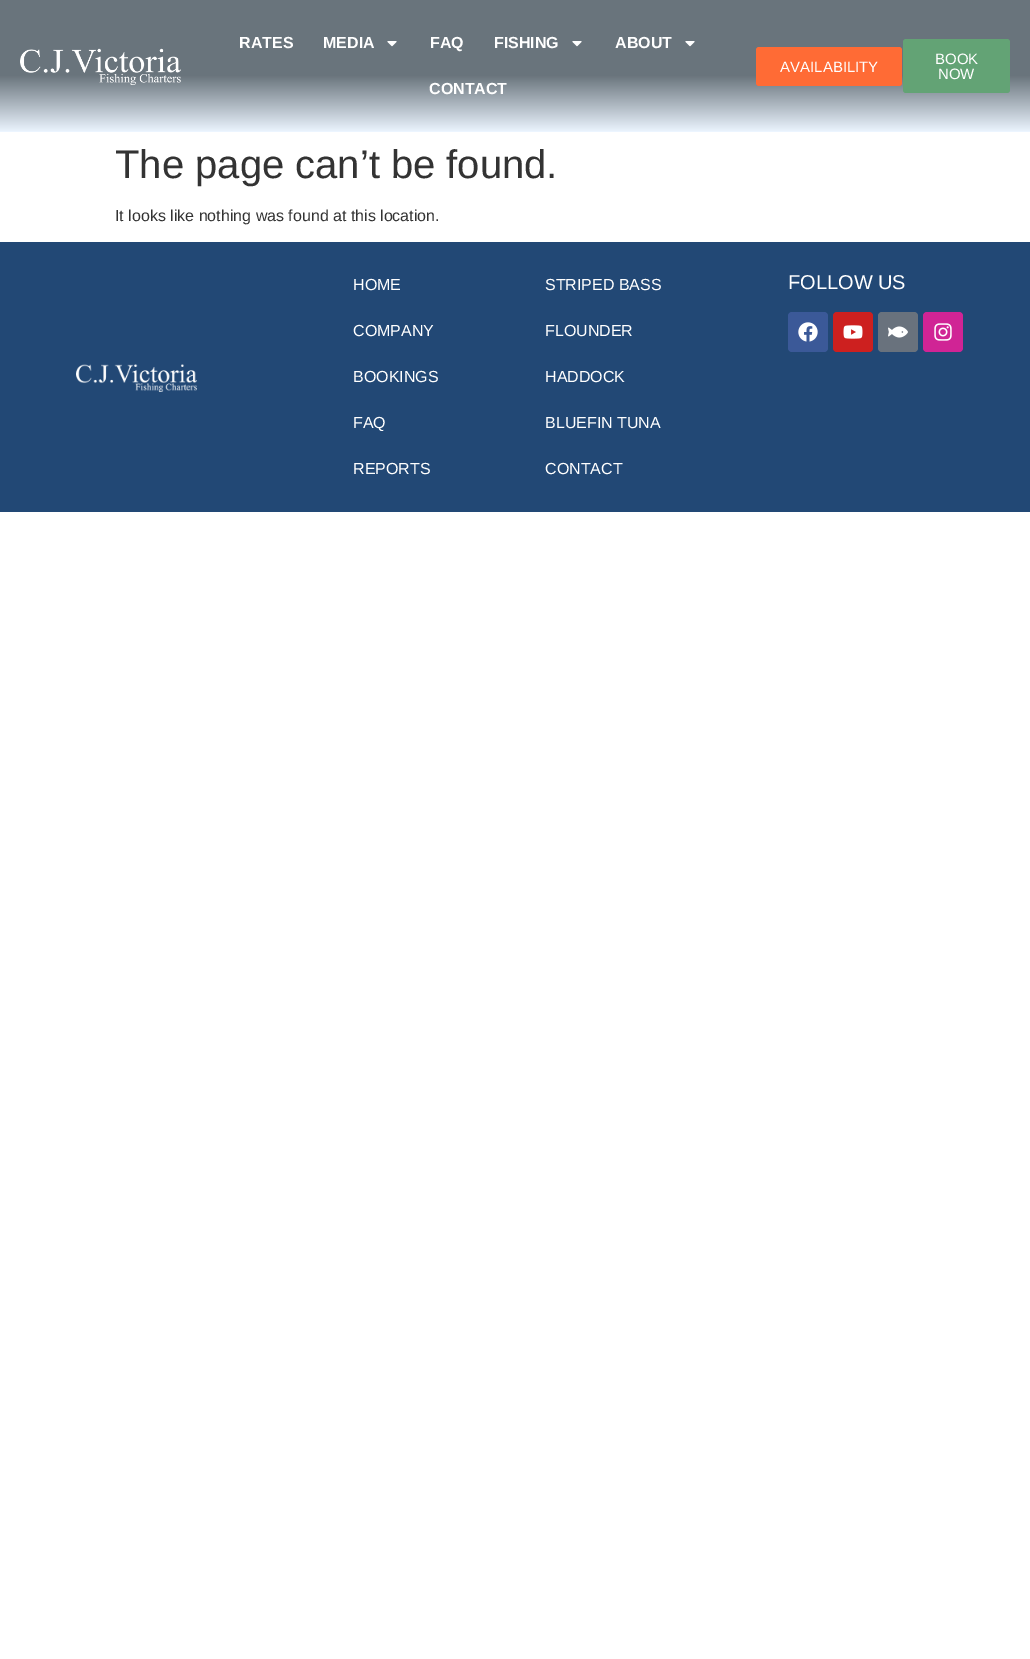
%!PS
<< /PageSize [1030 1659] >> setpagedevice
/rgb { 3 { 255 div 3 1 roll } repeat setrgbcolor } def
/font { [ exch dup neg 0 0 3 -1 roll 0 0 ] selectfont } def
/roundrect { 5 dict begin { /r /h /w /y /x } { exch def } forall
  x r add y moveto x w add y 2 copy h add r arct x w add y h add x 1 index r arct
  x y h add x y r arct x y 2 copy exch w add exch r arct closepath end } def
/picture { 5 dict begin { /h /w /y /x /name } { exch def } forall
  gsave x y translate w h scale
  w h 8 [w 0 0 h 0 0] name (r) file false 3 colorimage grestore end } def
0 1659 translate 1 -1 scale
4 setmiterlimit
255 255 255 rgb
0 0 1030 1659 rectfill
gsave 0 0 moveto 1030 0 lineto 1030 132 lineto 0 132 lineto closepath clip newpath
<< /ShadingType 2 /ColorSpace /DeviceRGB /Coords [515 0 515 132] /Extend [true true] /Function << /FunctionType 3 /Domain [0 1] /Functions [<< /FunctionType 2 /Domain [0 1] /C0 [0.412 0.455 0.486] /C1 [0.412 0.455 0.486] /N 1 >> << /FunctionType 2 /Domain [0 1] /C0 [0.412 0.455 0.486] /C1 [0.925 0.961 1] /N 1 >>] /Bounds [0.57] /Encode [0 1 0 1] >> >> shfill grestore
(img/1.rgb) 20 48 161 37 picture
(img/2.rgb) 387 41 10 6 picture
(img/2.rgb) 572 41 10 6 picture
(img/2.rgb) 685 41 10 6 picture
255 107 53 rgb
756 47 146 39 3 roundrect fill
99 163 117 rgb
903 39 107 54 3 roundrect fill
34 72 117 rgb
0 242 1030 270 rectfill
(img/3.rgb) 76 364 121 28 picture
59 89 152 rgb
788 312 40 40 4 roundrect fill
(img/4.rgb) 798 322 20 20 picture
205 32 31 rgb
833 312 40 40 4 roundrect fill
(img/5.rgb) 843 325 20 14 picture
105 114 125 rgb
878 312 40 40 4 roundrect fill
(img/6.rgb) 888 326 20 12 picture
208 36 149 rgb
923 312 40 40 4 roundrect fill
(img/7.rgb) 934 323 18 18 picture
/LiberationSans-Bold 16 font
255 255 255 rgb
[
  [(RATES) 239 48]
  [(MEDIA) 323 48]
  [(FAQ) 430 48]
  [(FISHING) 494 48]
  [(ABOUT) 615 48]
  [(CONTACT) 429 94]
] { aload pop moveto show } forall
/LiberationSans-Regular 15 font
[
  [(AVAILABILITY) 780 72]
  [(BOOK) 935 64]
  [(NOW) 938 79]
] { aload pop moveto show } forall
/LiberationSans-Regular 40 font
51 51 51 rgb
115 178 moveto (The page can’t be found.) show
/LiberationSans-Regular 16 font
115 221 moveto (It looks like nothing was found at this location.) show
255 255 255 rgb
[
  [(HOME) 353 290]
  [(COMPANY) 353 336]
  [(BOOKINGS) 353 382]
  [(FAQ) 353 428]
  [(REPORTS) 353 474]
  [(STRIPED BASS) 545 290]
  [(FLOUNDER) 545 336]
  [(HADDOCK) 545 382]
  [(BLUEFIN TUNA) 545 428]
  [(CONTACT) 545 474]
] { aload pop moveto show } forall
/LiberationSans-Regular 20 font
788 289 moveto (FOLLOW US) show
showpage
